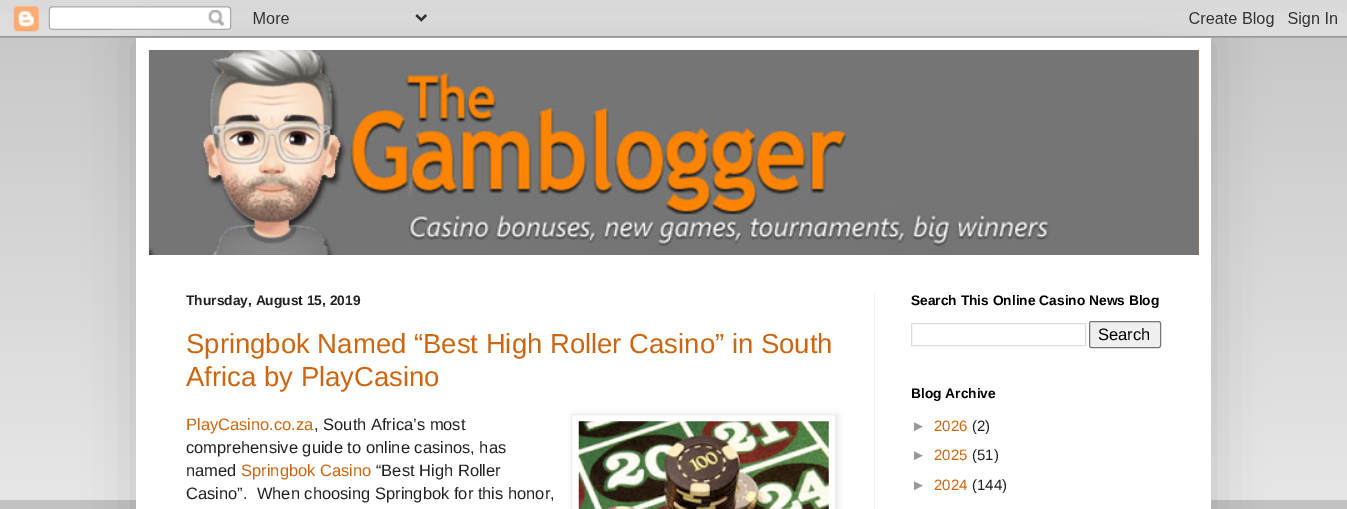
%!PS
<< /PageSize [1347 509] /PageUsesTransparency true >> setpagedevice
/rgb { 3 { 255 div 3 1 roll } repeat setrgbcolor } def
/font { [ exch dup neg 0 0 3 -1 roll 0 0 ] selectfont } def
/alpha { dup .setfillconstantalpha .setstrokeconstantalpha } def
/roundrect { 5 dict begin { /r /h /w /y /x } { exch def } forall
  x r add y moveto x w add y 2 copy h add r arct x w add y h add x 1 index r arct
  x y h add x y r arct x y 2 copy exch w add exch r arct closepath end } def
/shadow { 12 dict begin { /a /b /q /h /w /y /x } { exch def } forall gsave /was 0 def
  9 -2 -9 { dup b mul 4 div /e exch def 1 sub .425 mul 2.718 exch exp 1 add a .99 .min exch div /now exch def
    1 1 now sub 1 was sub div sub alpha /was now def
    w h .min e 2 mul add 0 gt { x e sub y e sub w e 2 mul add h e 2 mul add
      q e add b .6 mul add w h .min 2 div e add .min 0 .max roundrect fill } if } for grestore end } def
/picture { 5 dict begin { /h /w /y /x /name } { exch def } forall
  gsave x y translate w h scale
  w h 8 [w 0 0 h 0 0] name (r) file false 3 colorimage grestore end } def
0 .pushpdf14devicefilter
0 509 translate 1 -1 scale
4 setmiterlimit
194 194 194 rgb
0 0 1347 509 rectfill
(img/2.rgb) 0 13 1347 487 picture
0 0 0 rgb
136 38 1075 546 0 25 0.15 shadow
(img/1.rgb) 0 0 1347 38 picture
255 255 255 rgb
136 38 1075 471 rectfill
(img/3.rgb) 1198 50 1 159 picture
(img/4.rgb) 148 50 1051 205 picture
238 238 238 rgb
874 293 1 216 rectfill
0 0 0 rgb
573 415 265 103 0 3 0.1 shadow
255 255 255 rgb
571.5 414.5 moveto 835.5 414.5 lineto 835.5 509.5 lineto 571.5 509.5 lineto closepath gsave fill grestore
238 238 238 rgb
stroke
(img/5.rgb) 578 421 251 88 picture
221 221 221 rgb
911.5 323.5 174 22 rectstroke
239 239 239 rgb
1089.5 321.5 71 26 2 roundrect gsave fill grestore
118 118 118 rgb
stroke
/LiberationSans-Bold 13.75 font
34 34 34 rgb
186 305 moveto (Thursday, August 15, 2019) show
/LiberationSans-Regular 27.5 font
204 102 17 rgb
186 353 moveto (Springbok Named “Best High Roller Casino” in South) show
186 386 moveto (Africa by PlayCasino) show
/LiberationSans-Regular 16.5 font
186 430 moveto (PlayCasino.co.za) show
34 34 34 rgb
[
  [(, South Africa’s most) 314 430]
  [(comprehensive guide to online casinos, has) 186 453]
  [(named) 186 476]
] { aload pop moveto show } forall
204 102 17 rgb
241 476 moveto (Springbok Casino) show
34 34 34 rgb
376 476 moveto (“Best High Roller) show
186 499 moveto (Casino”.  When choosing Springbok for this honor,) show
/LiberationSans-Bold 13.75 font
0 0 0 rgb
911 305 moveto (Search This Online Casino News Blog) show
/LiberationSans-Regular 16.5 font
1098 340 moveto (Search) show
/LiberationSans-Bold 13.75 font
911 398 moveto (Blog Archive) show
/LiberationSans-Regular 15 font
153 153 153 rgb
911 431 moveto (►) show
204 102 17 rgb
934 431 moveto (2026) show
34 34 34 rgb
972 431 moveto (\(2\)) show
153 153 153 rgb
911 460 moveto (►) show
204 102 17 rgb
934 460 moveto (2025) show
34 34 34 rgb
972 460 moveto (\(51\)) show
153 153 153 rgb
911 490 moveto (►) show
204 102 17 rgb
934 490 moveto (2024) show
34 34 34 rgb
972 490 moveto (\(144\)) show
.poppdf14devicefilter showpage
